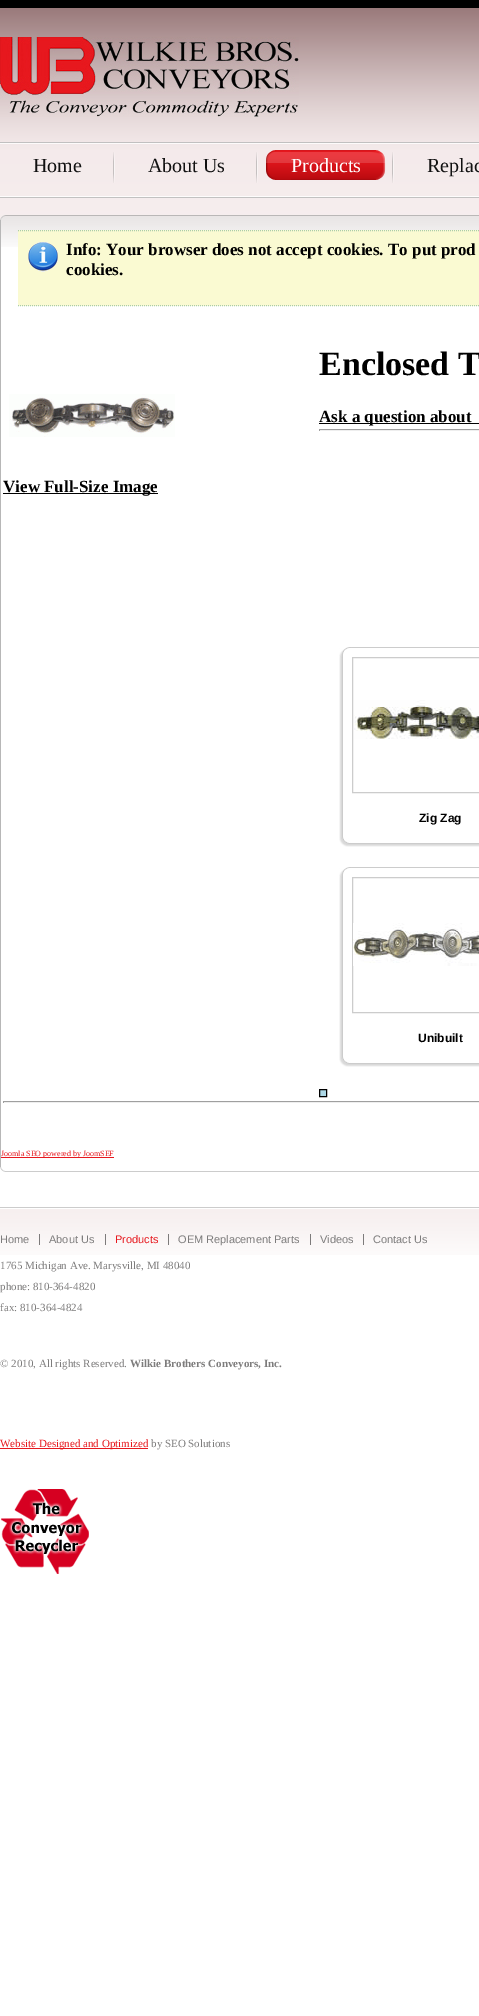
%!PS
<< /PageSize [479 2016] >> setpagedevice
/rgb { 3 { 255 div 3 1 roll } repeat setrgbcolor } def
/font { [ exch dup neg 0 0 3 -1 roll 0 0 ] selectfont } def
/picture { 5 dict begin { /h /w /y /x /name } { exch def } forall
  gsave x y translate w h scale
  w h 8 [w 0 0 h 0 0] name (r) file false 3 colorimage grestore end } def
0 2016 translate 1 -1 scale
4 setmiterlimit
255 255 255 rgb
0 0 479 2016 rectfill
(img/1.rgb) 0 0 479 220 picture
(img/2.rgb) 0 37 299 80 picture
(img/3.rgb) 113 152 2 31 picture
(img/3.rgb) 256 152 2 31 picture
(img/3.rgb) 392 152 2 31 picture
(img/4.rgb) 266 150 25 30 picture
(img/5.rgb) 291 150 95 30 picture
(img/6.rgb) 0 215 479 5 picture
(img/7.rgb) 1 220 478 27 picture
183 183 183 rgb
0 220 1 947 rectfill
250 250 210 rgb
18 230 461 76 rectfill
(img/8.rgb) 28 242 30 30 picture
170 204 170 rgb
[1 1] 0 setdash
18 230.5 moveto 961 230.5 lineto stroke
18 305.5 moveto 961 305.5 lineto stroke
(img/9.rgb) 9 394 166 43 picture
[
  [3 493 155 1 0 0 0]
  [319 423 160 1 0 0 0]
  [319 429 160 1 159 159 159]
  [319 430 160 1 238 238 238]
  [319 429 1 2 159 159 159]
] { aload pop rgb rectfill } forall
(img/10.rgb) 339 647 140 200 picture
204 204 204 rgb
[] 0 setdash
352.5 657.5 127 135 rectstroke
(img/11.rgb) 354 700 125 39 picture
(img/10.rgb) 339 867 140 200 picture
352.5 877.5 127 135 rectstroke
(img/12.rgb) 353 923 126 43 picture
173 216 230 rgb
319.5 1089.5 moveto 326.5 1089.5 lineto 326.5 1096.5 lineto 319.5 1096.5 lineto closepath gsave fill grestore
0 0 0 rgb
stroke
[
  [3 1101 476 1 159 159 159]
  [3 1102 476 1 238 238 238]
  [3 1101 1 2 159 159 159]
  [1 1157 113 1 231 24 30]
] { aload pop rgb rectfill } forall
(img/13.rgb) 0 1167 479 5 picture
(img/14.rgb) 0 1207 479 48 picture
[
  [39 1234 1 11 125 123 123]
  [105 1234 1 11 125 123 123]
  [168 1234 1 11 125 123 123]
  [310 1234 1 11 125 123 123]
  [363 1234 1 11 125 123 123]
  [0 1448 148 1 231 24 30]
] { aload pop rgb rectfill } forall
(img/15.rgb) 1 1489 88 85 picture
/LiberationSerif-Regular 20 font
17 17 17 rgb
33 172 moveto (Home) show
148 172 moveto (About Us) show
255 255 255 rgb
291 172 moveto (Products) show
17 17 17 rgb
427 172 moveto (Replac) show
/LiberationSerif-Bold 17 font
0 0 0 rgb
66 255 moveto (Info: Your browser does not accept cookies. To put prod) show
66 275 moveto (cookies.) show
/LiberationSerif-Bold 34 font
319 375 moveto (Enclosed T) show
/LiberationSerif-Bold 17 font
3 492 moveto (View Full-Size Image) show
319 422 moveto (Ask a question about) show
/LiberationSans-Bold 12 font
419 822 moveto (Zig Zag) show
418 1042 moveto (Unibuilt) show
/LiberationSerif-Regular 8 font
231 24 30 rgb
1 1156 moveto (Joomla SEO powered by JoomSEF) show
/LiberationSans-Regular 11 font
125 124 124 rgb
0 1243 moveto (Home) show
49 1243 moveto (About Us) show
231 24 30 rgb
115 1243 moveto (Products) show
125 124 124 rgb
[
  [(OEM Replacement Parts) 178 1243]
  [(Videos) 320 1243]
  [(Contact Us) 373 1243]
] { aload pop moveto show } forall
/LiberationSerif-Regular 11 font
[
  [(1765 Michigan Ave. Marysville, MI 48040) 0 1269]
  [(phone: 810-364-4820) 0 1290]
  [(fax: 810-364-4824) 0 1311]
  [(© 2010, All rights Reserved.) 0 1367]
] { aload pop moveto show } forall
/LiberationSerif-Bold 11 font
130 1367 moveto (Wilkie Brothers Conveyors, Inc.) show
/LiberationSerif-Regular 11 font
231 24 30 rgb
0 1447 moveto (Website Designed and Optimized) show
125 124 124 rgb
151 1447 moveto (by SEO Solutions) show
showpage
